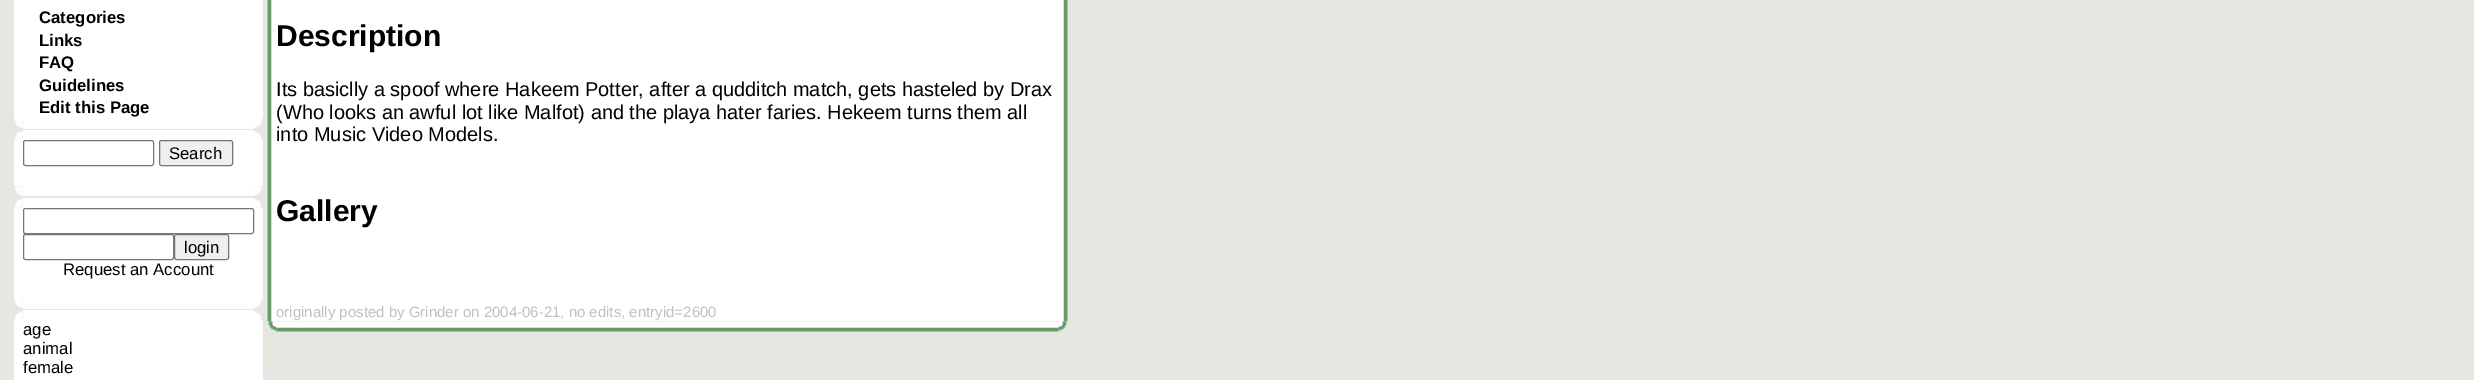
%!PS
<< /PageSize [2474 380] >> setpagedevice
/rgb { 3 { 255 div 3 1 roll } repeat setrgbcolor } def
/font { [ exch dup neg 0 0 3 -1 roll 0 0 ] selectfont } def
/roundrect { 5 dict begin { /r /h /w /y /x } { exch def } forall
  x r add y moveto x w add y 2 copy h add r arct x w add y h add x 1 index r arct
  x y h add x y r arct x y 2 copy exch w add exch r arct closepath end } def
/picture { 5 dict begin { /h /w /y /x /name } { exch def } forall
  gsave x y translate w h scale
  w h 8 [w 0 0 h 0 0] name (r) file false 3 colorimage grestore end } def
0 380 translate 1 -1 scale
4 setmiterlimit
228 232 224 rgb
0 0 2474 380 rectfill
255 255 255 rgb
14 0 249 119 rectfill
(img/1.rgb) 15 119 8 9 picture
23 119 231 10 rectfill
(img/2.rgb) 254 119 8 9 picture
(img/3.rgb) 15 131 8 9 picture
23 130 231 10 rectfill
(img/4.rgb) 254 131 8 9 picture
14 140 249 46 rectfill
118 118 118 rgb
23.5 140.5 130 25 2 roundrect stroke
239 239 239 rgb
159.5 140.5 73 25 2 roundrect gsave fill grestore
118 118 118 rgb
stroke
(img/5.rgb) 15 186 8 10 picture
255 255 255 rgb
23 186 231 10 rectfill
(img/6.rgb) 254 186 8 10 picture
(img/7.rgb) 15 199 8 9 picture
23 198 231 10 rectfill
(img/8.rgb) 254 199 8 9 picture
14 208 249 91 rectfill
118 118 118 rgb
23.5 208.5 230 25 2 roundrect stroke
23.5 234.5 150 25 2 roundrect stroke
239 239 239 rgb
174.5 234.5 54 25 2 roundrect gsave fill grestore
118 118 118 rgb
stroke
(img/1.rgb) 15 299 8 9 picture
255 255 255 rgb
23 299 231 10 rectfill
(img/2.rgb) 254 299 8 9 picture
(img/3.rgb) 15 311 8 9 picture
23 310 231 10 rectfill
(img/4.rgb) 254 311 8 9 picture
14 320 249 60 rectfill
(img/9.rgb) 267 0 10 322 picture
276 0 783 321 rectfill
(img/10.rgb) 1059 0 9 322 picture
(img/11.rgb) 267 321 10 10 picture
(img/12.rgb) 276 321 783 11 picture
(img/13.rgb) 1058 321 10 11 picture
/LiberationSans-Bold 16.75 font
0 0 0 rgb
[
  [(Categories) 39 23]
  [(Links) 39 46]
  [(FAQ) 39 68]
  [(Guidelines) 39 91]
  [(Edit this Page) 39 113]
] { aload pop moveto show } forall
/LiberationSans-Regular 16.75 font
[
  [(Search) 169 159]
  [(login) 184 253]
  [(Request an Account) 63 275]
  [(age) 23 335]
  [(animal) 23 354]
  [(female) 23 373]
] { aload pop moveto show } forall
/LiberationSans-Bold 30 font
276 46 moveto (Description) show
/LiberationSans-Regular 20 font
[
  [(Its basiclly a spoof where Hakeem Potter, after a qudditch match, gets hasteled by Drax) 276 96]
  [(\(Who looks an awful lot like Malfot\) and the playa hater faries. Hekeem turns them all) 276 119]
  [(into Music Video Models.) 276 141]
] { aload pop moveto show } forall
/LiberationSans-Bold 30 font
276 221 moveto (Gallery) show
/LiberationSans-Regular 15 font
192 192 192 rgb
276 317 moveto (originally posted by Grinder on 2004-06-21, no edits, entryid=2600) show
showpage
